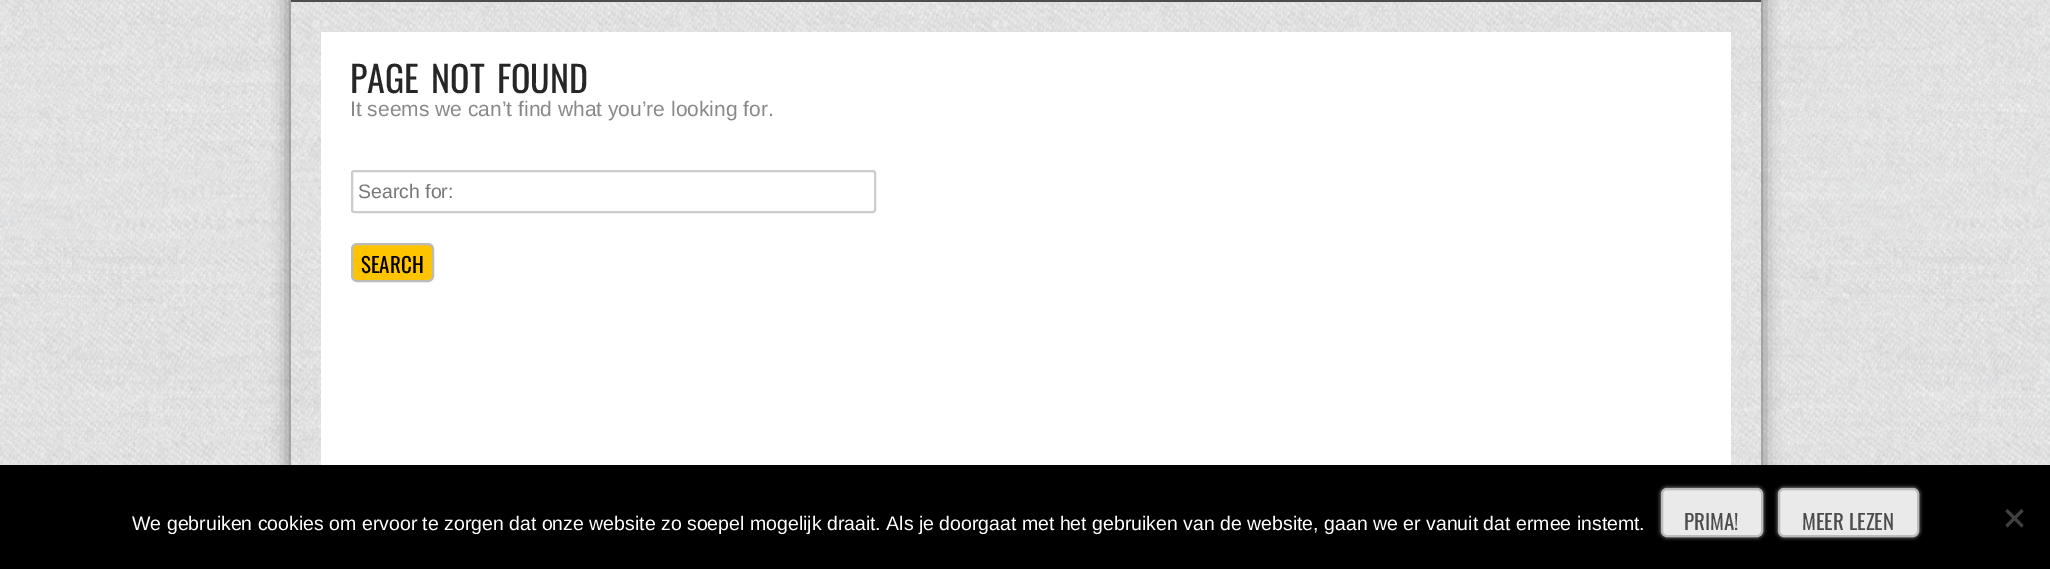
%!PS
<< /PageSize [2050 569] /PageUsesTransparency true >> setpagedevice
/rgb { 3 { 255 div 3 1 roll } repeat setrgbcolor } def
/font { [ exch dup neg 0 0 3 -1 roll 0 0 ] selectfont } def
/alpha { dup .setfillconstantalpha .setstrokeconstantalpha } def
/roundrect { 5 dict begin { /r /h /w /y /x } { exch def } forall
  x r add y moveto x w add y 2 copy h add r arct x w add y h add x 1 index r arct
  x y h add x y r arct x y 2 copy exch w add exch r arct closepath end } def
/shadow { 12 dict begin { /a /b /q /h /w /y /x } { exch def } forall gsave /was 0 def
  9 -2 -9 { dup b mul 4 div /e exch def 1 sub .425 mul 2.718 exch exp 1 add a .99 .min exch div /now exch def
    1 1 now sub 1 was sub div sub alpha /was now def
    w h .min e 2 mul add 0 gt { x e sub y e sub w e 2 mul add h e 2 mul add
      q e add b .6 mul add w h .min 2 div e add .min 0 .max roundrect fill } if } for grestore end } def
/picture { 5 dict begin { /h /w /y /x /name } { exch def } forall
  gsave x y translate w h scale
  w h 8 [w 0 0 h 0 0] name (r) file false 3 colorimage grestore end } def
0 .pushpdf14devicefilter
0 569 translate 1 -1 scale
4 setmiterlimit
255 255 255 rgb
0 0 2050 569 rectfill
(img/1.rgb) 0 0 2050 465 picture
gsave
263 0 moveto 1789 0 lineto 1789 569 lineto 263 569 lineto closepath 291 -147 moveto 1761 -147 lineto 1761 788 lineto 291 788 lineto closepath eoclip newpath
102 102 102 rgb
291 -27 1470 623 0 9 1 shadow
grestore
77 77 77 rgb
291 0 1470 2 rectfill
255 255 255 rgb
321 32 1410 433 rectfill
204 204 204 rgb
2 setlinewidth
352 171 523 41 2 roundrect stroke
255 196 0 rgb
352 244 81 37 5 roundrect gsave fill grestore
187 187 187 rgb
stroke
0 0 0 rgb
0 465 2050 104 rectfill
180 180 180 rgb
1661 488 102 49 6 2 1 shadow
234 234 234 rgb
1662 489 100 47 5 roundrect gsave fill grestore
187 187 187 rgb
stroke
180 180 180 rgb
1778 488 141 49 6 2 1 shadow
234 234 234 rgb
1779 489 139 47 5 roundrect gsave fill grestore
187 187 187 rgb
stroke
64 64 64 rgb
2021.5 509 moveto 2023.5 511.5 lineto 2007.5 527.5 lineto 2005.5 525 lineto closepath fill
2005.5 511.5 moveto 2007.5 509 lineto 2023.5 525 lineto 2021.5 527.5 lineto closepath fill
/Oswald-Regular 36 font
38 38 38 rgb
350 93 moveto 4 0 32 (PAGE NOT FOUND) widthshow
/LiberationSans-Regular 21 font
136 136 136 rgb
350 116 moveto (It seems we can’t find what you’re looking for.) show
/LiberationSans-Regular 19.5 font
119 119 119 rgb
358 198 moveto (Search for:) show
/Oswald-Regular 21 font
0 0 0 rgb
361 273 moveto (SEARCH) show
/LiberationSans-Regular 19.5 font
255 255 255 rgb
132 530 moveto (We gebruiken cookies om ervoor te zorgen dat onze website zo soepel mogelijk draait. Als je doorgaat met het gebruiken van de website, gaan we er vanuit dat ermee instemt.) show
/Oswald-Regular 21 font
76 76 76 rgb
1684 530 moveto (PRIMA!) show
1802 530 moveto (MEER LEZEN) show
.poppdf14devicefilter showpage
